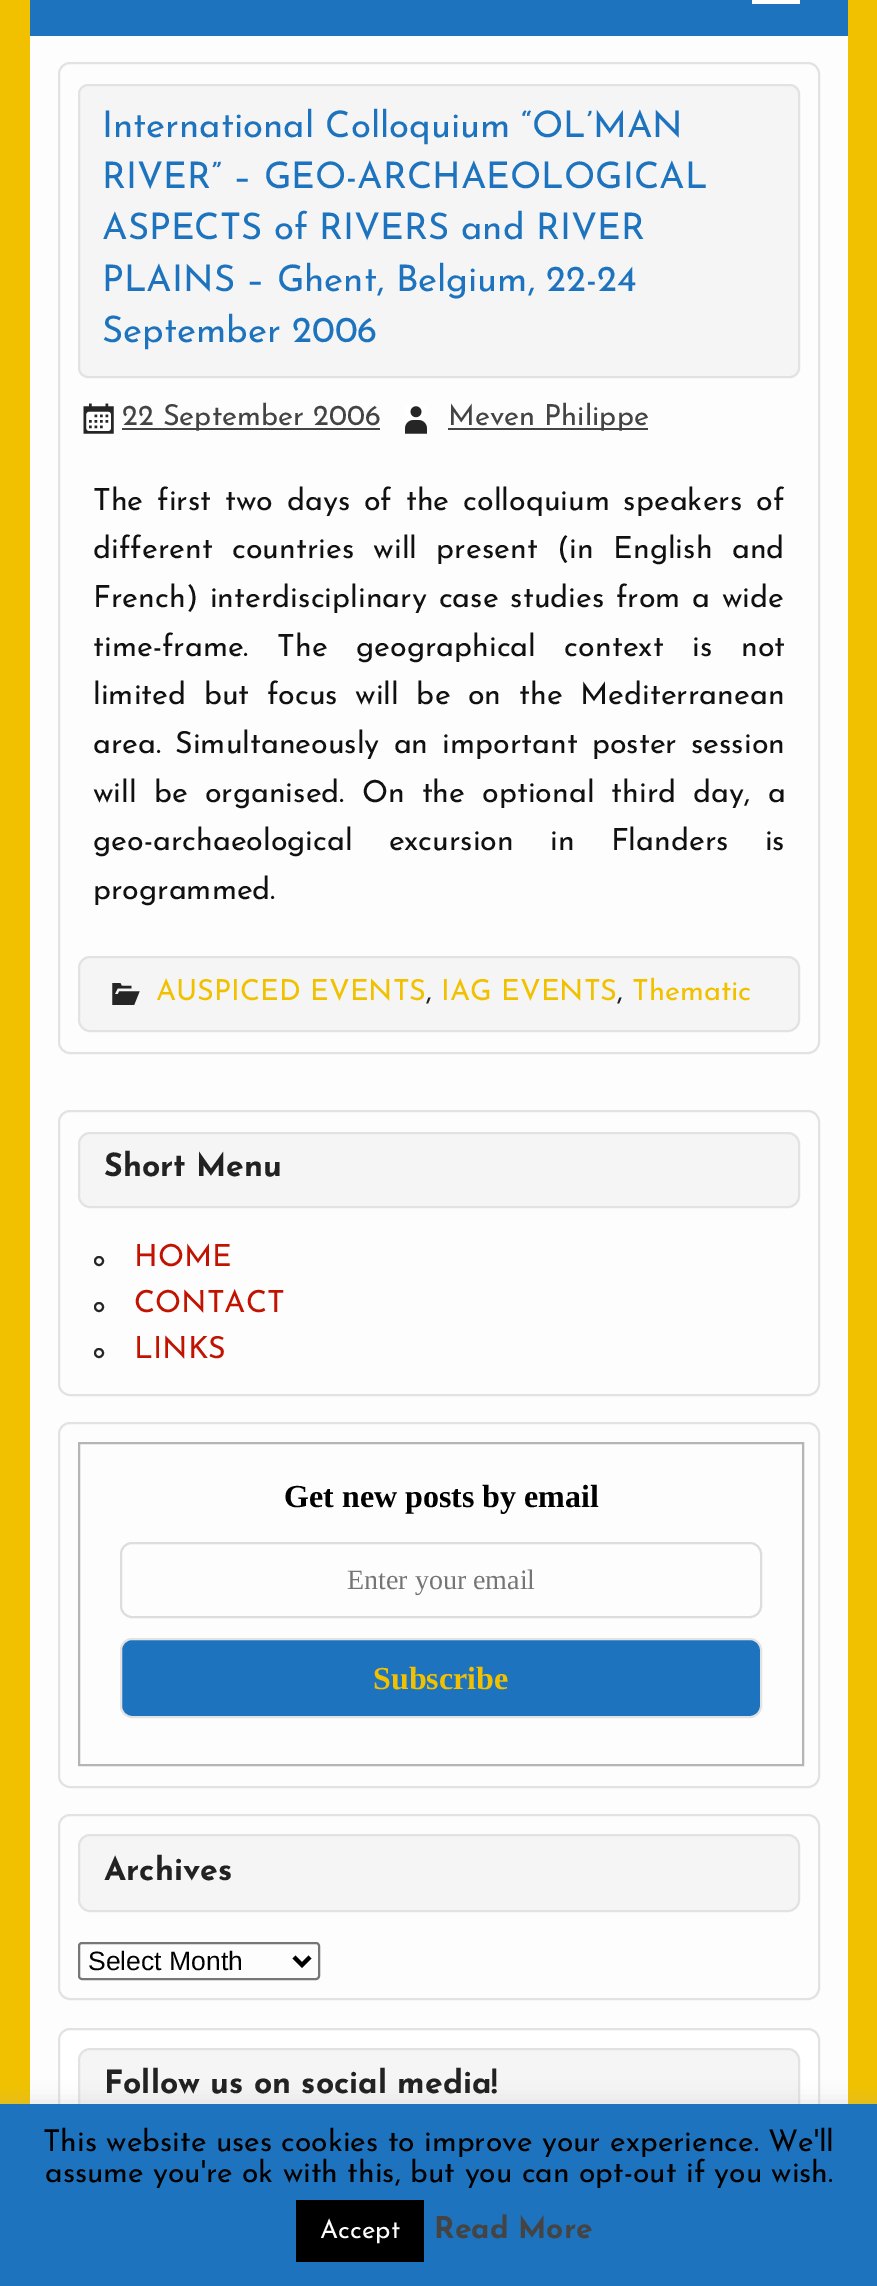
%!PS
<< /PageSize [877 2286] /PageUsesTransparency true >> setpagedevice
/rgb { 3 { 255 div 3 1 roll } repeat setrgbcolor } def
/font { [ exch dup neg 0 0 3 -1 roll 0 0 ] selectfont } def
/alpha { dup .setfillconstantalpha .setstrokeconstantalpha } def
/circle { newpath 0 360 arc closepath } def
/roundrect { 5 dict begin { /r /h /w /y /x } { exch def } forall
  x r add y moveto x w add y 2 copy h add r arct x w add y h add x 1 index r arct
  x y h add x y r arct x y 2 copy exch w add exch r arct closepath end } def
/shadow { 12 dict begin { /a /b /q /h /w /y /x } { exch def } forall gsave /was 0 def
  9 -2 -9 { dup b mul 4 div /e exch def 1 sub .425 mul 2.718 exch exp 1 add a .99 .min exch div /now exch def
    1 1 now sub 1 was sub div sub alpha /was now def
    w h .min e 2 mul add 0 gt { x e sub y e sub w e 2 mul add h e 2 mul add
      q e add b .6 mul add w h .min 2 div e add .min 0 .max roundrect fill } if } for grestore end } def
/picture { 5 dict begin { /h /w /y /x /name } { exch def } forall
  gsave x y translate w h scale
  w h 8 [w 0 0 h 0 0] name (r) file false 3 colorimage grestore end } def
0 .pushpdf14devicefilter
0 2286 translate 1 -1 scale
4 setmiterlimit
241 193 0 rgb
0 0 877 2286 rectfill
30 115 190 rgb
30 0 818 36 rectfill
255 255 255 rgb
752 4 moveto 752 -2 lineto 800 -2 lineto 800 4 lineto closepath 752 -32 moveto 800 -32 lineto 800 -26 lineto 752 -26 lineto closepath 752 -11 moveto 752 -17 lineto 800 -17 lineto 800 -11 lineto closepath fill
253 253 253 rgb
30 36 818 2068 rectfill
226 226 226 rgb
2 setlinewidth
59 63 760 990 11 roundrect stroke
245 245 245 rgb
79 85 720 292 9 roundrect gsave fill grestore
226 226 226 rgb
stroke
(img/1.rgb) 83 403 31 31 picture
68 68 68 rgb
122 428 258 2 rectfill
(img/2.rgb) 405 406 22 28 picture
448 428 200 2 rectfill
245 245 245 rgb
79 957 720 74 11 roundrect gsave fill grestore
226 226 226 rgb
stroke
(img/3.rgb) 112 983 28 22 picture
59 1111 760 284 11 roundrect stroke
245 245 245 rgb
79 1133 720 74 11 roundrect gsave fill grestore
226 226 226 rgb
stroke
37 37 37 rgb
99 1261 4 circle stroke
99 1307 4 circle stroke
99 1353 4 circle stroke
226 226 226 rgb
59 1423 760 364 11 roundrect stroke
181 181 181 rgb
79 1443 724 322 rectstroke
221 221 221 rgb
121 1543 640 74 11 roundrect stroke
30 115 190 rgb
121 1639 640 78 11 roundrect gsave fill grestore
226 226 226 rgb
stroke
59 1815 760 184 11 roundrect stroke
245 245 245 rgb
79 1835 720 76 11 roundrect gsave fill grestore
226 226 226 rgb
stroke
118 118 118 rgb
79 1943 240 36 3 roundrect stroke
0 0 0 rgb
4 setlinewidth
294 1957 moveto 302 1965 lineto 310 1957 lineto stroke
255 255 255 rgb
59 2029 760 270 11 roundrect gsave fill grestore
226 226 226 rgb
2 setlinewidth
stroke
245 245 245 rgb
79 2049 720 74 11 roundrect gsave fill grestore
226 226 226 rgb
stroke
172 171 171 rgb
0 2102 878 182 0 10 0.3 shadow
30 115 190 rgb
0 2104 877 182 rectfill
0 0 0 rgb
296 2200 128 62 rectfill
/JosefinSans-Regular 36.5 font
30 115 190 rgb
[
  [(International Colloquium “OL’MAN) 102 137]
  [(RIVER” – GEO-ARCHAEOLOGICAL) 102 188]
  [(ASPECTS of RIVERS and RIVER) 102 239]
  [(PLAINS – Ghent, Belgium, 22-24) 102 291]
  [(September 2006) 102 342]
] { aload pop moveto show } forall
/JosefinSans-Regular 28.9 font
68 68 68 rgb
122 425 moveto (22 September 2006) show
448 425 moveto (Meven Philippe) show
/JosefinSans-Regular 30.4 font
17 17 17 rgb
93 510 moveto 4.25 0 32 (The first two days of the colloquium speakers of) widthshow
93 558 moveto 9.75 0 32 (different countries will present \(in English and) widthshow
93 607 moveto 2.25 0 32 (French\) interdisciplinary case studies from a wide) widthshow
93 656 moveto 19 0 32 (time-frame. The geographical context is not) widthshow
93 704 moveto 8 0 32 (limited but focus will be on the Mediterranean) widthshow
93 753 moveto 4.5 0 32 (area. Simultaneously an important poster session) widthshow
93 802 moveto 7.5 0 32 (will be organised. On the optional third day, a) widthshow
93 850 moveto 26.5 0 32 (geo-archaeological excursion in Flanders is) widthshow
93 899 moveto (programmed.) show
/JosefinSans-Regular 28.9 font
241 193 0 rgb
156 1000 moveto (AUSPICED EVENTS) show
34 34 34 rgb
426 1000 moveto (,) show
241 193 0 rgb
441 1000 moveto (IAG EVENTS) show
34 34 34 rgb
617 1000 moveto (,) show
241 193 0 rgb
632 1000 moveto (Thematic) show
/JosefinSans-Bold 32 font
34 34 34 rgb
104 1176 moveto (Short Menu) show
/JosefinSans-Regular 30.4 font
193 19 0 rgb
[
  [(HOME) 134 1266]
  [(CONTACT) 134 1312]
  [(LINKS) 134 1358]
] { aload pop moveto show } forall
/LiberationSerif-Bold 32 font
0 0 0 rgb
284 1507 moveto (Get new posts by email) show
/LiberationSerif-Regular 28 font
117 117 117 rgb
347 1589 moveto (Enter your email) show
/LiberationSerif-Bold 32 font
241 193 0 rgb
373 1689 moveto (Subscribe) show
/JosefinSans-Bold 32 font
34 34 34 rgb
104 1880 moveto (Archives) show
/LiberationSans-Regular 26.5 font
0 0 0 rgb
88 1970 moveto (Select Month) show
/JosefinSans-Bold 32 font
34 34 34 rgb
104 2093 moveto (Follow us on social media!) show
/JosefinSans-Regular 30 font
0 0 0 rgb
43 2151 moveto (This website uses cookies to improve your experience. We'll) show
45 2182 moveto (assume you're ok with this, but you can opt-out if you wish.) show
/JosefinSans-Regular 26 font
255 255 255 rgb
320 2238 moveto (Accept) show
/JosefinSans-Bold 30 font
68 68 68 rgb
434 2238 moveto (Read More) show
.poppdf14devicefilter showpage
